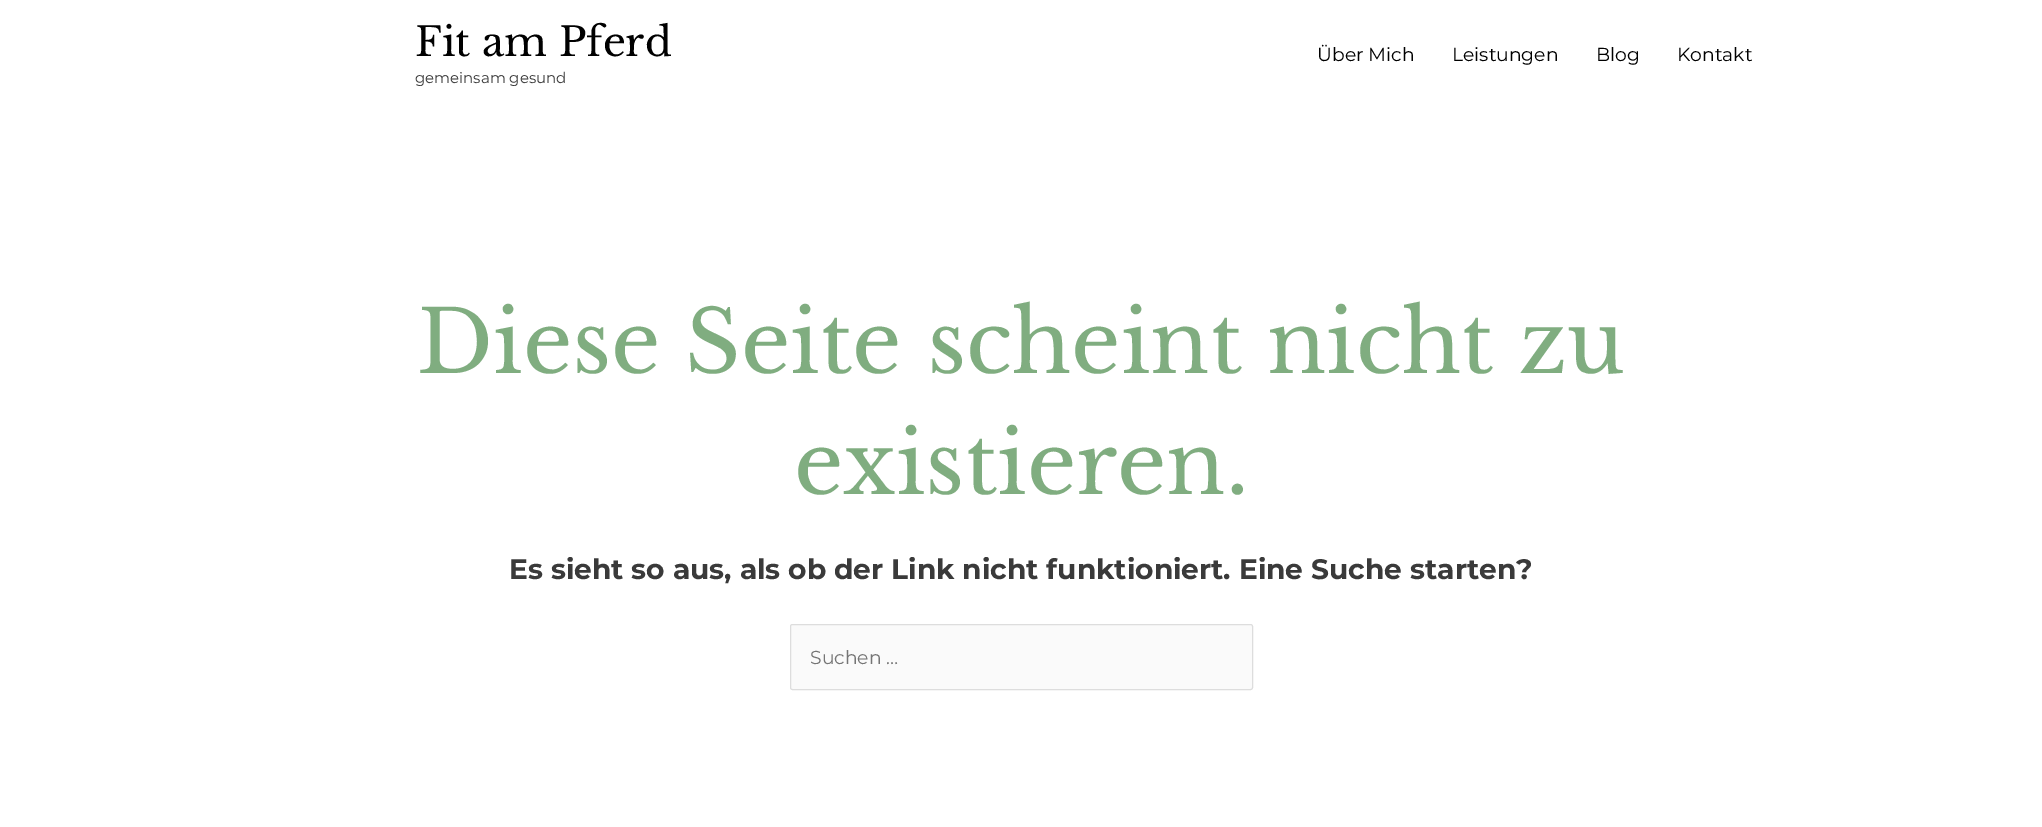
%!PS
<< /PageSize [2042 827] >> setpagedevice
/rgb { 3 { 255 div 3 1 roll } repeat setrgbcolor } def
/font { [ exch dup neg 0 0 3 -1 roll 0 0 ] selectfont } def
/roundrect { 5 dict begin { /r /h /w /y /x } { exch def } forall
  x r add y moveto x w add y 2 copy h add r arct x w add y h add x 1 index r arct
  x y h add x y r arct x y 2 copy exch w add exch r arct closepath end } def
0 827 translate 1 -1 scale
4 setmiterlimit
255 255 255 rgb
0 0 2042 827 rectfill
250 250 250 rgb
790.5 624.5 462 65 2 roundrect gsave fill grestore
221 221 221 rgb
stroke
/LibreBaskerville-Regular 40 font
0 0 0 rgb
415 56 moveto (Fit am Pferd) show
/Montserrat-Regular 15 font
58 58 58 rgb
415 83 moveto (gemeinsam gesund) show
/Montserrat-Regular 18.75 font
0 0 0 rgb
[
  [(Über Mich) 1317 61]
  [(Leistungen) 1452 61]
  [(Blog) 1596 61]
  [(Kontakt) 1677 61]
] { aload pop moveto show } forall
/LibreBaskerville-Regular 86.25 font
128 173 128 rgb
417 373 moveto (Diese Seite scheint nicht zu) show
794 494 moveto (existieren.) show
/Montserrat-Bold 28.1 font
58 58 58 rgb
509 579 moveto (Es sieht so aus, als ob der Link nicht funktioniert. Eine Suche starten?) show
/Montserrat-Regular 18.75 font
117 117 117 rgb
810 664 moveto (Suchen …) show
showpage
